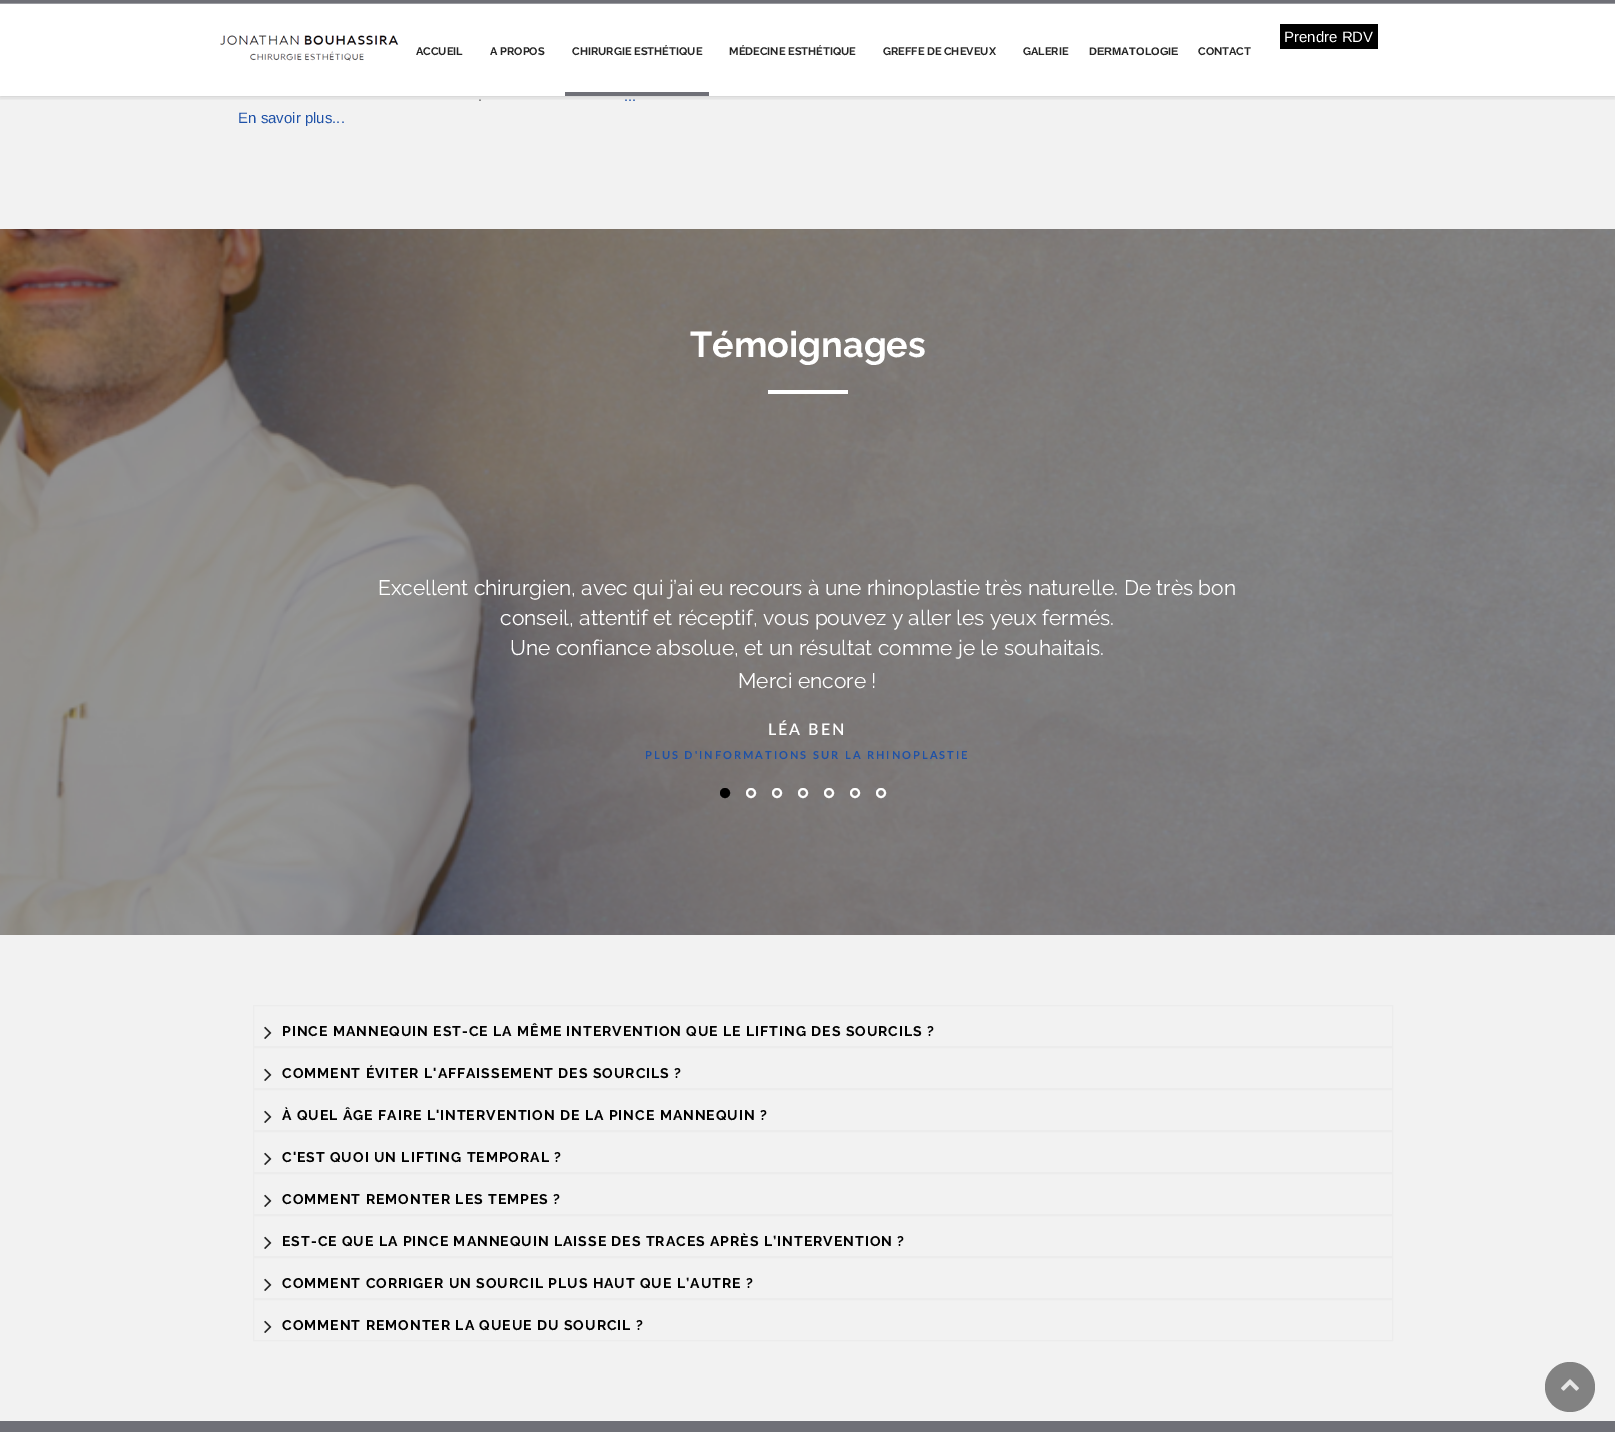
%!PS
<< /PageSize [1615 1432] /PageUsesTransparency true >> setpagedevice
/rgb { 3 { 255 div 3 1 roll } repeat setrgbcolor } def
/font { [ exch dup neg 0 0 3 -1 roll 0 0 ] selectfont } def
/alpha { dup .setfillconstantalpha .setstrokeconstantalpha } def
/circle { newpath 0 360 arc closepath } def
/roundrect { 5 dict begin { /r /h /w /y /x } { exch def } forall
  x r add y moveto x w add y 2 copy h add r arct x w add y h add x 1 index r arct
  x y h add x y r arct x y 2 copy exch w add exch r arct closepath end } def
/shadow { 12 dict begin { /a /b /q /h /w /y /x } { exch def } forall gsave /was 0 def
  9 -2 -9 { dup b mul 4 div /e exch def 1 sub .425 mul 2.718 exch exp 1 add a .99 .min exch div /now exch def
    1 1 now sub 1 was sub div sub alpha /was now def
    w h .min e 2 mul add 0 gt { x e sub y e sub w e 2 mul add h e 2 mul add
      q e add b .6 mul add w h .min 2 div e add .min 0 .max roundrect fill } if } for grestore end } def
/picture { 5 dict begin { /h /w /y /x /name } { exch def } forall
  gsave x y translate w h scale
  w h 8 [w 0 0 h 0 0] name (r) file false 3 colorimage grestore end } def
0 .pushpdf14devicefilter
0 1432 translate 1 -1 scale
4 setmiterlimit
242 242 242 rgb
0 0 1615 1432 rectfill
255 255 255 rgb
0 4 1615 92 rectfill
gsave
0 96 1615 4 rectclip
0 0 0 rgb
0 0 1615 96 0 3.5 0.2 shadow
grestore
111 112 119 rgb
0 0 1615 3 rectfill
154 155 160 rgb
0 3 1615 1 rectfill
(img/1.rgb) 220 35 179 26 picture
111 112 119 rgb
565 92 144 4 rectfill
0 0 0 rgb
1280 24 98 25 rectfill
(img/2.rgb) 0 229 1615 706 picture
255 255 255 rgb
768 390 80 4 rectfill
0 0 0 rgb
725 793 4 circle gsave fill grestore
2 setlinewidth
stroke
255 255 255 rgb
751 793 4 circle stroke
777 793 4 circle stroke
803 793 4 circle stroke
829 793 4 circle stroke
855 793 4 circle stroke
881 793 4 circle stroke
236 236 236 rgb
1 setlinewidth
253.5 1005.5 1139 41 rectstroke
(img/3.rgb) 264 1026 8 13 picture
253.5 1047.5 1139 41 rectstroke
(img/3.rgb) 264 1068 8 13 picture
253.5 1089.5 1139 41 rectstroke
(img/3.rgb) 264 1110 8 13 picture
253.5 1131.5 1139 41 rectstroke
(img/3.rgb) 264 1152 8 13 picture
253.5 1173.5 1139 41 rectstroke
(img/3.rgb) 264 1194 8 13 picture
253.5 1215.5 1139 41 rectstroke
(img/3.rgb) 264 1236 8 13 picture
253.5 1257.5 1139 41 rectstroke
(img/3.rgb) 264 1278 8 13 picture
253.5 1299.5 1139 41 rectstroke
(img/3.rgb) 264 1320 8 13 picture
111 112 119 rgb
0 1421 1615 11 rectfill
130 130 130 rgb
1570 1387 25 circle fill
(img/4.rgb) 1561 1379 18 12 picture
/Raleway-Bold 11 font
38 38 38 rgb
[
  [(ACCUEIL) 416 55]
  [(A PROPOS) 490 55]
  [(CHIRURGIE ESTHÉTIQUE) 572 55]
  [(MÉDECINE ESTHÉTIQUE) 729 55]
  [(GREFFE DE CHEVEUX) 883 55]
  [(GALERIE) 1023 55]
] { aload pop moveto show } forall
/LiberationSans-Bold 11 font
1089 55 moveto (DERMATOLOGIE) show
/Raleway-Bold 11 font
1198 55 moveto (CONTACT) show
/LiberationSans-Regular 15 font
255 255 255 rgb
1284 42 moveto (Prendre RDV) show
102 102 102 rgb
478 101 moveto (.) show
30 81 167 rgb
238 123 moveto (En savoir plus...) show
624 101 moveto (...) show
/Raleway-Bold 36 font
255 255 255 rgb
690 357 moveto (Témoignages) show
/Raleway-Regular 21 font
[
  [(Excellent chirurgien, avec qui j’ai eu recours à une rhinoplastie très naturelle. De très bon) 378 595]
  [(conseil, attentif et réceptif, vous pouvez y aller les yeux fermés.) 500 625]
  [(Une confiance absolue, et un résultat comme je le souhaitais.) 510 655]
  [(Merci encore !) 738 688]
] { aload pop moveto show } forall
/Lato-SemiBold 16 font
768 735 moveto 2 0 (LÉA BEN) ashow
/Lato-Bold 11 font
30 81 167 rgb
645 759 moveto 2 0 (PLUS D'INFORMATIONS SUR LA RHINOPLASTIE) ashow
/Raleway-Bold 14 font
0 0 0 rgb
282 1036 moveto 1 0 (PINCE MANNEQUIN EST-CE LA MÊME INTERVENTION QUE LE LIFTING DES SOURCILS ?) ashow
282 1078 moveto 1 0 (COMMENT ÉVITER L'AFFAISSEMENT DES SOURCILS ?) ashow
282 1120 moveto 1 0 (À QUEL ÂGE FAIRE L'INTERVENTION DE LA PINCE MANNEQUIN ?) ashow
282 1162 moveto 1 0 (C'EST QUOI UN LIFTING TEMPORAL ?) ashow
282 1204 moveto 1 0 (COMMENT REMONTER LES TEMPES ?) ashow
282 1246 moveto 1 0 (EST-CE QUE LA PINCE MANNEQUIN LAISSE DES TRACES APRÈS L’INTERVENTION ?) ashow
282 1288 moveto 1 0 (COMMENT CORRIGER UN SOURCIL PLUS HAUT QUE L’AUTRE ?) ashow
282 1330 moveto 1 0 (COMMENT REMONTER LA QUEUE DU SOURCIL ?) ashow
.poppdf14devicefilter showpage
